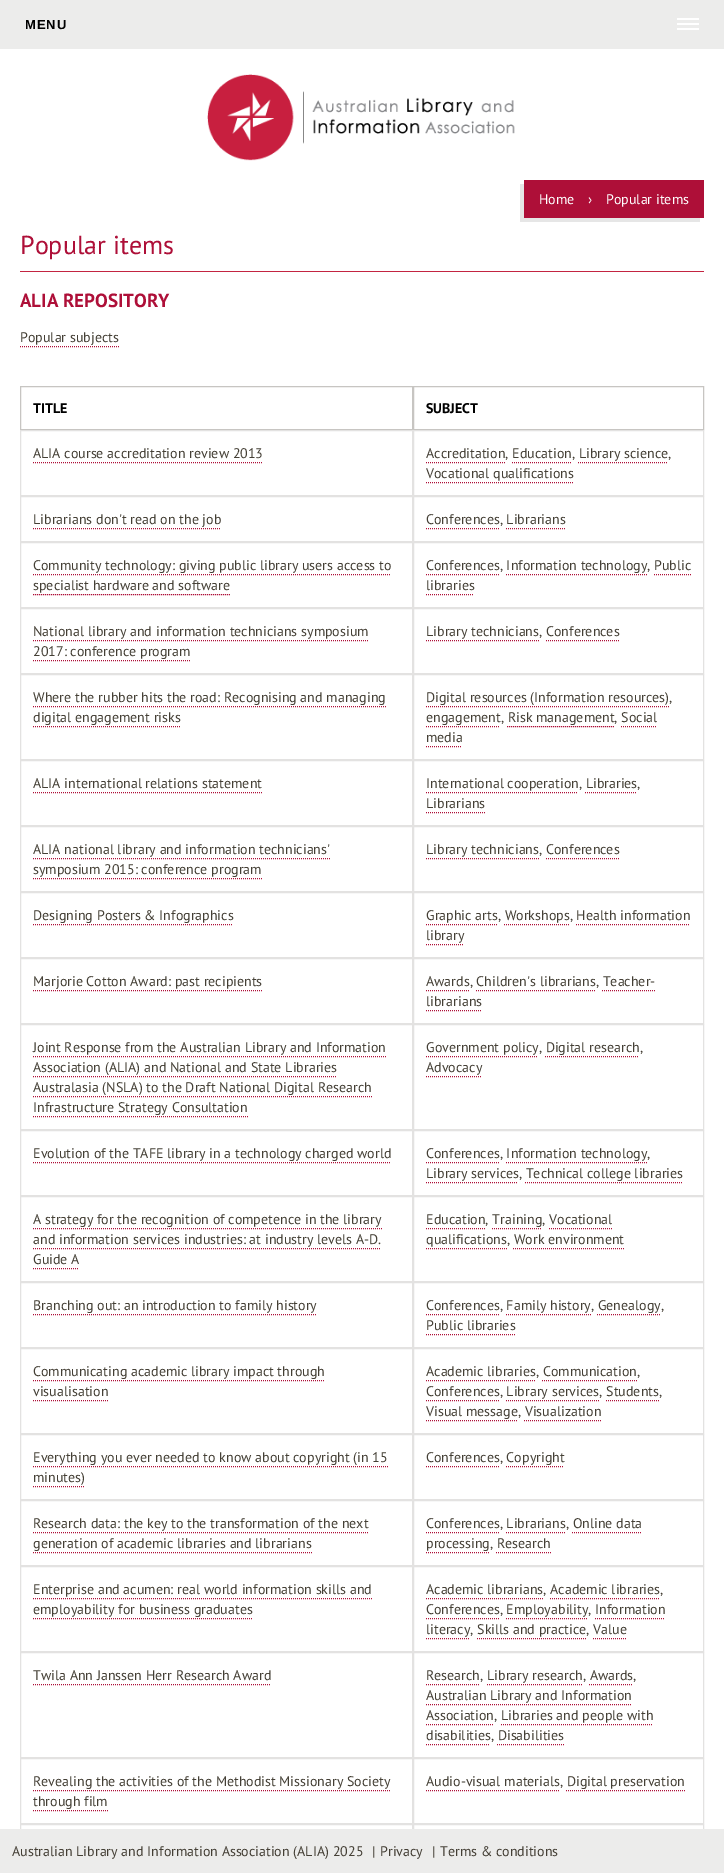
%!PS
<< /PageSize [724 1873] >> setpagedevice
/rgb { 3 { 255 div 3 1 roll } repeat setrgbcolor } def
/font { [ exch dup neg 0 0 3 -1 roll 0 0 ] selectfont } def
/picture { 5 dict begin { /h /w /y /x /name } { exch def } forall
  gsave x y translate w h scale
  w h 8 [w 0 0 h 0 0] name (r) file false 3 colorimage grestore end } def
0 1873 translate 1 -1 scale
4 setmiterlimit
255 255 255 rgb
0 0 724 1873 rectfill
[
  [0 0 724 49 236 236 235]
  [677 18 22 2 255 255 255]
  [677 23 22 2 255 255 255]
  [677 28 22 2 255 255 255]
] { aload pop rgb rectfill } forall
(img/1.rgb) 207 74 308 87 picture
230 230 230 rgb
520 184 moveto 520 222 lineto 700 222 lineto 700 218 lineto 524 218 lineto 524 184 lineto closepath fill
174 15 56 rgb
524 180 180 38 rectfill
195 36 65 rgb
20 271 684 1 rectfill
174 15 56 rgb
[1 1] 0 setdash
20 346.5 moveto 119 346.5 lineto stroke
199 197 194 rgb
[] 0 setdash
20.5 386.5 392 43 rectstroke
413.5 386.5 290 43 rectstroke
227 226 225 rgb
20.5 430.5 392 65 rectstroke
174 15 56 rgb
[1 1] 0 setdash
33 462.5 moveto 263 462.5 lineto stroke
227 226 225 rgb
[] 0 setdash
413.5 430.5 290 65 rectstroke
174 15 56 rgb
[1 1] 0 setdash
426 462.5 moveto 505 462.5 lineto stroke
512 462.5 moveto 571 462.5 lineto stroke
578 462.5 moveto 668 462.5 lineto stroke
426 482.5 moveto 574 482.5 lineto stroke
227 226 225 rgb
[] 0 setdash
20.5 496.5 392 45 rectstroke
174 15 56 rgb
[1 1] 0 setdash
33 528.5 moveto 221 528.5 lineto stroke
227 226 225 rgb
[] 0 setdash
413.5 496.5 290 45 rectstroke
174 15 56 rgb
[1 1] 0 setdash
426 528.5 moveto 499 528.5 lineto stroke
506 528.5 moveto 565 528.5 lineto stroke
227 226 225 rgb
[] 0 setdash
20.5 542.5 392 65 rectstroke
174 15 56 rgb
[1 1] 0 setdash
33 574.5 moveto 391 574.5 lineto stroke
33 594.5 moveto 230 594.5 lineto stroke
227 226 225 rgb
[] 0 setdash
413.5 542.5 290 65 rectstroke
174 15 56 rgb
[1 1] 0 setdash
426 574.5 moveto 499 574.5 lineto stroke
506 574.5 moveto 647 574.5 lineto stroke
654 574.5 moveto 691 574.5 lineto stroke
426 594.5 moveto 474 594.5 lineto stroke
227 226 225 rgb
[] 0 setdash
20.5 608.5 392 65 rectstroke
174 15 56 rgb
[1 1] 0 setdash
33 640.5 moveto 369 640.5 lineto stroke
33 660.5 moveto 191 660.5 lineto stroke
227 226 225 rgb
[] 0 setdash
413.5 608.5 290 65 rectstroke
174 15 56 rgb
[1 1] 0 setdash
426 640.5 moveto 539 640.5 lineto stroke
546 640.5 moveto 619 640.5 lineto stroke
227 226 225 rgb
[] 0 setdash
20.5 674.5 392 85 rectstroke
174 15 56 rgb
[1 1] 0 setdash
33 706.5 moveto 386 706.5 lineto stroke
33 726.5 moveto 181 726.5 lineto stroke
227 226 225 rgb
[] 0 setdash
413.5 674.5 290 85 rectstroke
174 15 56 rgb
[1 1] 0 setdash
426 706.5 moveto 669 706.5 lineto stroke
426 726.5 moveto 500 726.5 lineto stroke
507 726.5 moveto 614 726.5 lineto stroke
621 726.5 moveto 657 726.5 lineto stroke
426 746.5 moveto 462 746.5 lineto stroke
227 226 225 rgb
[] 0 setdash
20.5 760.5 392 65 rectstroke
174 15 56 rgb
[1 1] 0 setdash
33 792.5 moveto 262 792.5 lineto stroke
227 226 225 rgb
[] 0 setdash
413.5 760.5 290 65 rectstroke
174 15 56 rgb
[1 1] 0 setdash
426 792.5 moveto 578 792.5 lineto stroke
585 792.5 moveto 637 792.5 lineto stroke
426 812.5 moveto 485 812.5 lineto stroke
227 226 225 rgb
[] 0 setdash
20.5 826.5 392 65 rectstroke
174 15 56 rgb
[1 1] 0 setdash
33 858.5 moveto 330 858.5 lineto stroke
33 878.5 moveto 262 878.5 lineto stroke
227 226 225 rgb
[] 0 setdash
413.5 826.5 290 65 rectstroke
174 15 56 rgb
[1 1] 0 setdash
426 858.5 moveto 539 858.5 lineto stroke
546 858.5 moveto 619 858.5 lineto stroke
227 226 225 rgb
[] 0 setdash
20.5 892.5 392 65 rectstroke
174 15 56 rgb
[1 1] 0 setdash
33 924.5 moveto 233 924.5 lineto stroke
227 226 225 rgb
[] 0 setdash
413.5 892.5 290 65 rectstroke
174 15 56 rgb
[1 1] 0 setdash
426 924.5 moveto 497 924.5 lineto stroke
504 924.5 moveto 569 924.5 lineto stroke
576 924.5 moveto 690 924.5 lineto stroke
426 944.5 moveto 464 944.5 lineto stroke
227 226 225 rgb
[] 0 setdash
20.5 958.5 392 65 rectstroke
174 15 56 rgb
[1 1] 0 setdash
33 990.5 moveto 262 990.5 lineto stroke
227 226 225 rgb
[] 0 setdash
413.5 958.5 290 65 rectstroke
174 15 56 rgb
[1 1] 0 setdash
426 990.5 moveto 469 990.5 lineto stroke
476 990.5 moveto 595 990.5 lineto stroke
602 990.5 moveto 655 990.5 lineto stroke
426 1010.5 moveto 482 1010.5 lineto stroke
227 226 225 rgb
[] 0 setdash
20.5 1024.5 392 105 rectstroke
174 15 56 rgb
[1 1] 0 setdash
33 1056.5 moveto 386 1056.5 lineto stroke
33 1076.5 moveto 337 1076.5 lineto stroke
33 1096.5 moveto 372 1096.5 lineto stroke
33 1116.5 moveto 248 1116.5 lineto stroke
227 226 225 rgb
[] 0 setdash
413.5 1024.5 290 105 rectstroke
174 15 56 rgb
[1 1] 0 setdash
426 1056.5 moveto 538 1056.5 lineto stroke
545 1056.5 moveto 639 1056.5 lineto stroke
426 1076.5 moveto 482 1076.5 lineto stroke
227 226 225 rgb
[] 0 setdash
20.5 1130.5 392 65 rectstroke
174 15 56 rgb
[1 1] 0 setdash
33 1162.5 moveto 391 1162.5 lineto stroke
227 226 225 rgb
[] 0 setdash
413.5 1130.5 290 65 rectstroke
174 15 56 rgb
[1 1] 0 setdash
426 1162.5 moveto 499 1162.5 lineto stroke
506 1162.5 moveto 647 1162.5 lineto stroke
426 1182.5 moveto 518 1182.5 lineto stroke
525 1182.5 moveto 683 1182.5 lineto stroke
227 226 225 rgb
[] 0 setdash
20.5 1196.5 392 85 rectstroke
174 15 56 rgb
[1 1] 0 setdash
33 1228.5 moveto 382 1228.5 lineto stroke
33 1248.5 moveto 381 1248.5 lineto stroke
33 1268.5 moveto 79 1268.5 lineto stroke
227 226 225 rgb
[] 0 setdash
413.5 1196.5 290 85 rectstroke
174 15 56 rgb
[1 1] 0 setdash
426 1228.5 moveto 485 1228.5 lineto stroke
492 1228.5 moveto 542 1228.5 lineto stroke
549 1228.5 moveto 612 1228.5 lineto stroke
426 1248.5 moveto 507 1248.5 lineto stroke
513 1248.5 moveto 624 1248.5 lineto stroke
227 226 225 rgb
[] 0 setdash
20.5 1282.5 392 65 rectstroke
174 15 56 rgb
[1 1] 0 setdash
33 1314.5 moveto 317 1314.5 lineto stroke
227 226 225 rgb
[] 0 setdash
413.5 1282.5 290 65 rectstroke
174 15 56 rgb
[1 1] 0 setdash
426 1314.5 moveto 499 1314.5 lineto stroke
506 1314.5 moveto 591 1314.5 lineto stroke
597 1314.5 moveto 661 1314.5 lineto stroke
426 1334.5 moveto 515 1334.5 lineto stroke
227 226 225 rgb
[] 0 setdash
20.5 1348.5 392 85 rectstroke
174 15 56 rgb
[1 1] 0 setdash
33 1380.5 moveto 325 1380.5 lineto stroke
33 1400.5 moveto 108 1400.5 lineto stroke
227 226 225 rgb
[] 0 setdash
413.5 1348.5 290 85 rectstroke
174 15 56 rgb
[1 1] 0 setdash
426 1380.5 moveto 536 1380.5 lineto stroke
542 1380.5 moveto 637 1380.5 lineto stroke
426 1400.5 moveto 499 1400.5 lineto stroke
506 1400.5 moveto 599 1400.5 lineto stroke
606 1400.5 moveto 659 1400.5 lineto stroke
426 1420.5 moveto 517 1420.5 lineto stroke
524 1420.5 moveto 601 1420.5 lineto stroke
227 226 225 rgb
[] 0 setdash
20.5 1434.5 392 65 rectstroke
174 15 56 rgb
[1 1] 0 setdash
33 1466.5 moveto 388 1466.5 lineto stroke
33 1486.5 moveto 85 1486.5 lineto stroke
227 226 225 rgb
[] 0 setdash
413.5 1434.5 290 65 rectstroke
174 15 56 rgb
[1 1] 0 setdash
426 1466.5 moveto 499 1466.5 lineto stroke
506 1466.5 moveto 564 1466.5 lineto stroke
227 226 225 rgb
[] 0 setdash
20.5 1500.5 392 65 rectstroke
174 15 56 rgb
[1 1] 0 setdash
33 1532.5 moveto 369 1532.5 lineto stroke
33 1552.5 moveto 312 1552.5 lineto stroke
227 226 225 rgb
[] 0 setdash
413.5 1500.5 290 65 rectstroke
174 15 56 rgb
[1 1] 0 setdash
426 1532.5 moveto 499 1532.5 lineto stroke
506 1532.5 moveto 565 1532.5 lineto stroke
572 1532.5 moveto 642 1532.5 lineto stroke
426 1552.5 moveto 490 1552.5 lineto stroke
496 1552.5 moveto 551 1552.5 lineto stroke
227 226 225 rgb
[] 0 setdash
20.5 1566.5 392 85 rectstroke
174 15 56 rgb
[1 1] 0 setdash
33 1598.5 moveto 372 1598.5 lineto stroke
33 1618.5 moveto 253 1618.5 lineto stroke
227 226 225 rgb
[] 0 setdash
413.5 1566.5 290 85 rectstroke
174 15 56 rgb
[1 1] 0 setdash
426 1598.5 moveto 543 1598.5 lineto stroke
550 1598.5 moveto 660 1598.5 lineto stroke
426 1618.5 moveto 499 1618.5 lineto stroke
506 1618.5 moveto 588 1618.5 lineto stroke
595 1618.5 moveto 665 1618.5 lineto stroke
426 1638.5 moveto 470 1638.5 lineto stroke
477 1638.5 moveto 586 1638.5 lineto stroke
593 1638.5 moveto 626 1638.5 lineto stroke
227 226 225 rgb
[] 0 setdash
20.5 1652.5 392 105 rectstroke
174 15 56 rgb
[1 1] 0 setdash
33 1684.5 moveto 271 1684.5 lineto stroke
227 226 225 rgb
[] 0 setdash
413.5 1652.5 290 105 rectstroke
174 15 56 rgb
[1 1] 0 setdash
426 1684.5 moveto 480 1684.5 lineto stroke
487 1684.5 moveto 582 1684.5 lineto stroke
589 1684.5 moveto 633 1684.5 lineto stroke
426 1704.5 moveto 631 1704.5 lineto stroke
426 1724.5 moveto 494 1724.5 lineto stroke
501 1724.5 moveto 653 1724.5 lineto stroke
426 1744.5 moveto 490 1744.5 lineto stroke
497 1744.5 moveto 564 1744.5 lineto stroke
227 226 225 rgb
[] 0 setdash
20.5 1758.5 392 65 rectstroke
174 15 56 rgb
[1 1] 0 setdash
33 1790.5 moveto 390 1790.5 lineto stroke
33 1810.5 moveto 108 1810.5 lineto stroke
227 226 225 rgb
[] 0 setdash
413.5 1758.5 290 65 rectstroke
174 15 56 rgb
[1 1] 0 setdash
426 1790.5 moveto 560 1790.5 lineto stroke
566 1790.5 moveto 685 1790.5 lineto stroke
227 226 225 rgb
[] 0 setdash
20.5 1824.5 392 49 rectstroke
413.5 1824.5 290 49 rectstroke
236 236 235 rgb
0 1829 724 44 rectfill
/LiberationSans-Bold 13 font
0 0 0 rgb
25 29 moveto 1 0 (MENU) ashow
/PTSans-Regular 14 font
255 255 255 rgb
[
  [(Home) 539 204]
  [(›) 588 204]
  [(Popular items) 606 204]
] { aload pop moveto show } forall
/PTSans-Regular 26 font
174 15 56 rgb
20 254 moveto (Popular items) show
/PTSans-Bold 19 font
20 307 moveto (ALIA REPOSITORY) show
/PTSans-Regular 14 font
68 63 53 rgb
20 342 moveto (Popular subjects) show
/PTSans-Bold 14 font
0 0 0 rgb
33 413 moveto (TITLE) show
426 413 moveto (SUBJECT) show
/PTSans-Regular 14 font
68 63 53 rgb
[
  [(ALIA course accreditation review 2013) 33 458]
  [(Accreditation, Education, Library science,) 426 458]
  [(Vocational qualifications) 426 478]
  [(Librarians don't read on the job) 33 524]
  [(Conferences, Librarians) 426 524]
  [(Community technology: giving public library users access to) 33 570]
  [(specialist hardware and software) 33 590]
  [(Conferences, Information technology, Public) 426 570]
  [(libraries) 426 590]
  [(National library and information technicians symposium) 33 636]
  [(2017: conference program) 33 656]
  [(Library technicians, Conferences) 426 636]
  [(Where the rubber hits the road: Recognising and managing) 33 702]
  [(digital engagement risks) 33 722]
  [(Digital resources \(Information resources\),) 426 702]
  [(engagement, Risk management, Social) 426 722]
  [(media) 426 742]
  [(ALIA international relations statement) 33 788]
  [(International cooperation, Libraries,) 426 788]
  [(Librarians) 426 808]
  [(ALIA national library and information technicians') 33 854]
  [(symposium 2015: conference program) 33 874]
  [(Library technicians, Conferences) 426 854]
  [(Designing Posters & Infographics) 33 920]
  [(Graphic arts, Workshops, Health information) 426 920]
  [(library) 426 940]
  [(Marjorie Cotton Award: past recipients) 33 986]
  [(Awards, Children's librarians, Teacher-) 426 986]
  [(librarians) 426 1006]
  [(Joint Response from the Australian Library and Information) 33 1052]
  [(Association \(ALIA\) and National and State Libraries) 33 1072]
  [(Australasia \(NSLA\) to the Draft National Digital Research) 33 1092]
  [(Infrastructure Strategy Consultation) 33 1112]
  [(Government policy, Digital research,) 426 1052]
  [(Advocacy) 426 1072]
  [(Evolution of the TAFE library in a technology charged world) 33 1158]
  [(Conferences, Information technology,) 426 1158]
  [(Library services, Technical college libraries) 426 1178]
  [(A strategy for the recognition of competence in the library) 33 1224]
  [(and information services industries: at industry levels A-D.) 33 1244]
  [(Guide A) 33 1264]
  [(Education, Training, Vocational) 426 1224]
  [(qualifications, Work environment) 426 1244]
  [(Branching out: an introduction to family history) 33 1310]
  [(Conferences, Family history, Genealogy,) 426 1310]
  [(Public libraries) 426 1330]
  [(Communicating academic library impact through) 33 1376]
  [(visualisation) 33 1396]
  [(Academic libraries, Communication,) 426 1376]
  [(Conferences, Library services, Students,) 426 1396]
  [(Visual message, Visualization) 426 1416]
  [(Everything you ever needed to know about copyright \(in 15) 33 1462]
  [(minutes\)) 33 1482]
  [(Conferences, Copyright) 426 1462]
  [(Research data: the key to the transformation of the next) 33 1528]
  [(generation of academic libraries and librarians) 33 1548]
  [(Conferences, Librarians, Online data) 426 1528]
  [(processing, Research) 426 1548]
  [(Enterprise and acumen: real world information skills and) 33 1594]
  [(employability for business graduates) 33 1614]
  [(Academic librarians, Academic libraries,) 426 1594]
  [(Conferences, Employability, Information) 426 1614]
  [(literacy, Skills and practice, Value) 426 1634]
  [(Twila Ann Janssen Herr Research Award) 33 1680]
  [(Research, Library research, Awards,) 426 1680]
  [(Australian Library and Information) 426 1700]
  [(Association, Libraries and people with) 426 1720]
  [(disabilities, Disabilities) 426 1740]
  [(Revealing the activities of the Methodist Missionary Society) 33 1786]
  [(through film) 33 1806]
  [(Audio-visual materials, Digital preservation) 426 1786]
  [(Australian Library and Information Association \(ALIA\) 2025) 12 1856]
  [(|) 372 1856]
  [(Privacy) 380 1856]
  [(|) 432 1856]
  [(Terms & conditions) 440 1856]
] { aload pop moveto show } forall
showpage
